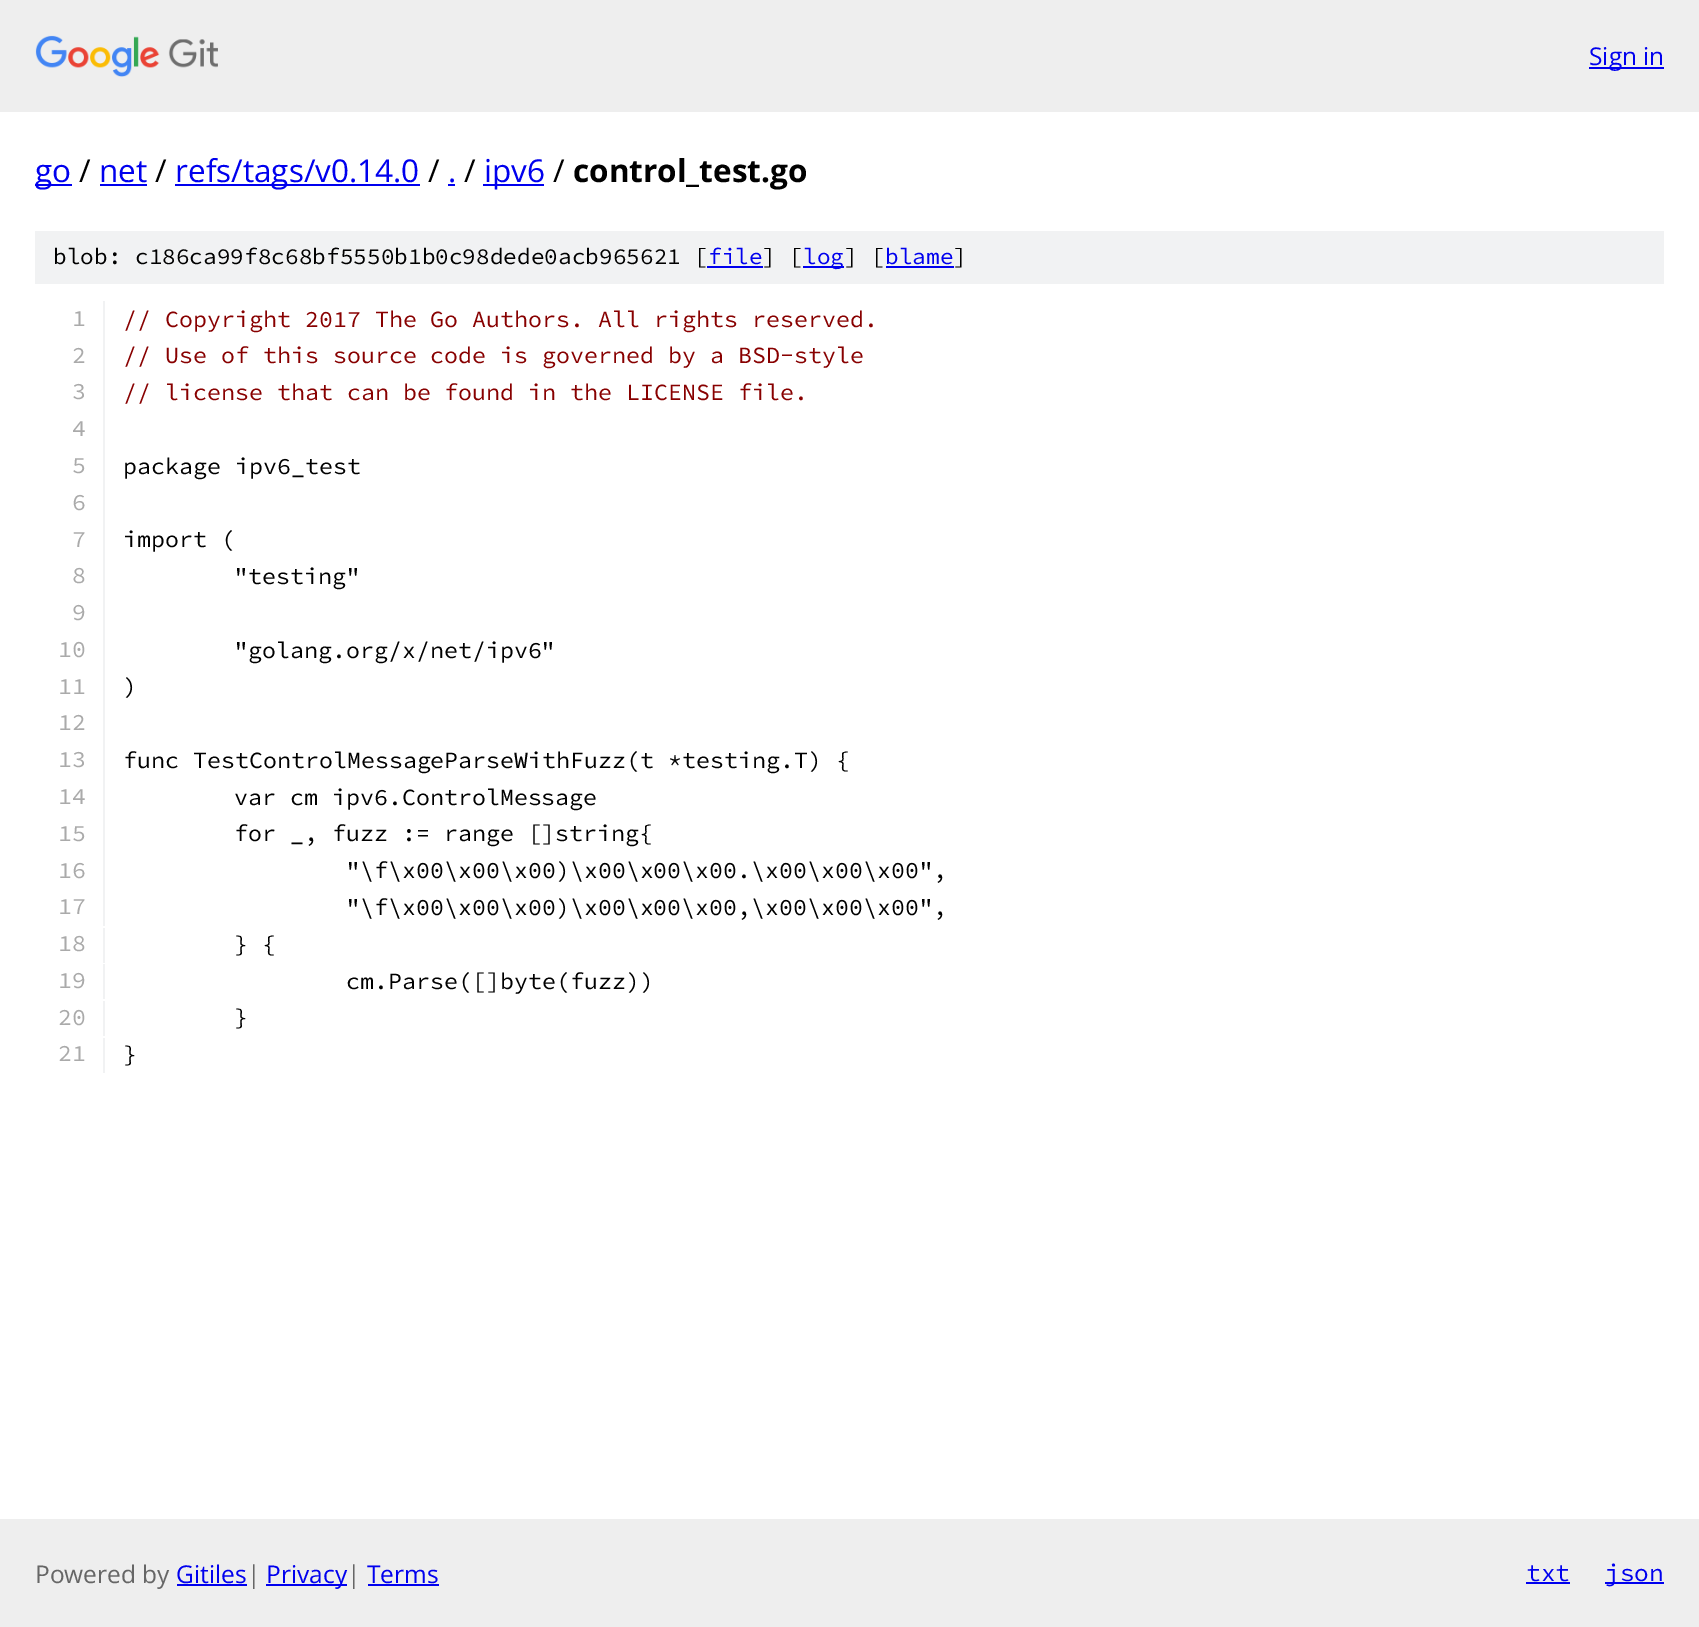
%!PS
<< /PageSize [1699 1627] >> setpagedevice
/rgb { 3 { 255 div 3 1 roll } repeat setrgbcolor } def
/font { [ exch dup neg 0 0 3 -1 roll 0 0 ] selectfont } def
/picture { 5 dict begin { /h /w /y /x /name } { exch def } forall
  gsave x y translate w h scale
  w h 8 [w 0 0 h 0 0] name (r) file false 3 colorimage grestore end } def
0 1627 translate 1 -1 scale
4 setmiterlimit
255 255 255 rgb
0 0 1699 1627 rectfill
238 238 238 rgb
0 0 1699 112 rectfill
(img/1.rgb) 35 35 183 42 picture
[
  [1589 67 75 2 0 0 238]
  [35 184 37 2 0 0 238]
  [100 184 47 2 0 0 238]
  [175 184 245 2 0 0 238]
  [448 184 7 2 0 0 238]
  [483 184 61 2 0 0 238]
  [35 231 1629 53 241 242 243]
  [707 266 56 2 0 0 238]
  [803 266 41 2 0 0 238]
  [886 266 68 2 0 0 238]
  [103 301 2 625 241 242 243]
  [103 928 2 35 241 242 243]
  [103 964 2 35 241 242 243]
  [103 1001 2 35 241 242 243]
  [103 1038 2 35 241 242 243]
  [0 1519 1699 108 238 238 238]
  [177 1584 70 2 0 0 238]
  [266 1584 81 2 0 0 238]
  [368 1584 71 2 0 0 238]
  [1526 1582 44 2 0 0 238]
  [1605 1582 59 2 0 0 238]
] { aload pop rgb rectfill } forall
/OpenSans-Regular 24.5 font
1589 65 moveto (Sign in) show
/OpenSans-Regular 31.5 font
35 182 moveto (go) show
0 0 0 rgb
79 182 moveto (/) show
0 0 238 rgb
99 182 moveto (net) show
0 0 0 rgb
155 182 moveto (/) show
0 0 238 rgb
175 182 moveto (refs/tags/v0.14.0) show
0 0 0 rgb
428 182 moveto (/) show
0 0 238 rgb
448 182 moveto (.) show
0 0 0 rgb
464 182 moveto (/) show
0 0 238 rgb
484 182 moveto (ipv6) show
0 0 0 rgb
553 182 moveto (/) show
/OpenSans-Bold 31.5 font
573 182 moveto (control_test.go) show
/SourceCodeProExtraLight-ExtraLight 22.75 font
53 264 moveto (blob: c186ca99f8c68bf5550b1b0c98dede0acb965621 [) show
0 0 238 rgb
708 264 moveto (file) show
0 0 0 rgb
762 264 moveto (] [) show
0 0 238 rgb
803 264 moveto (log) show
0 0 0 rgb
844 264 moveto (] [) show
0 0 238 rgb
885 264 moveto (blame) show
0 0 0 rgb
953 264 moveto (]) show
/SourceCodeProExtraLight-ExtraLight 23.3 font
170 170 170 rgb
72 326 moveto (1) show
136 0 0 rgb
123 327 moveto (// Copyright 2017 The Go Authors. All rights reserved.) show
170 170 170 rgb
72 363 moveto (2) show
136 0 0 rgb
123 363 moveto (// Use of this source code is governed by a BSD-style) show
170 170 170 rgb
72 399 moveto (3) show
136 0 0 rgb
123 400 moveto (// license that can be found in the LICENSE file.) show
170 170 170 rgb
72 436 moveto (4) show
72 473 moveto (5) show
0 0 0 rgb
123 474 moveto (package ipv6_test) show
170 170 170 rgb
72 510 moveto (6) show
72 547 moveto (7) show
0 0 0 rgb
123 547 moveto (import \() show
170 170 170 rgb
72 583 moveto (8) show
0 0 0 rgb
234 584 moveto ("testing") show
170 170 170 rgb
72 620 moveto (9) show
58 657 moveto (10) show
0 0 0 rgb
234 658 moveto ("golang.org/x/net/ipv6") show
170 170 170 rgb
58 694 moveto (11) show
0 0 0 rgb
123 694 moveto (\)) show
170 170 170 rgb
58 730 moveto (12) show
58 767 moveto (13) show
0 0 0 rgb
123 768 moveto (func TestControlMessageParseWithFuzz\(t *testing.T\) {) show
170 170 170 rgb
58 804 moveto (14) show
0 0 0 rgb
234 805 moveto (var cm ipv6.ControlMessage) show
170 170 170 rgb
58 841 moveto (15) show
0 0 0 rgb
234 841 moveto (for _, fuzz := range []string{) show
170 170 170 rgb
58 878 moveto (16) show
0 0 0 rgb
346 878 moveto ("\\f\\x00\\x00\\x00\)\\x00\\x00\\x00.\\x00\\x00\\x00",) show
170 170 170 rgb
58 914 moveto (17) show
0 0 0 rgb
346 915 moveto ("\\f\\x00\\x00\\x00\)\\x00\\x00\\x00,\\x00\\x00\\x00",) show
170 170 170 rgb
58 951 moveto (18) show
0 0 0 rgb
234 952 moveto (} {) show
170 170 170 rgb
58 988 moveto (19) show
0 0 0 rgb
346 989 moveto (cm.Parse\([]byte\(fuzz\)\)) show
170 170 170 rgb
58 1025 moveto (20) show
0 0 0 rgb
234 1025 moveto (}) show
170 170 170 rgb
58 1061 moveto (21) show
0 0 0 rgb
123 1062 moveto (}) show
/OpenSans-Regular 24.5 font
102 102 102 rgb
35 1583 moveto (Powered by) show
0 0 238 rgb
176 1583 moveto (Gitiles) show
102 102 102 rgb
247 1583 moveto (|) show
0 0 238 rgb
266 1583 moveto (Privacy) show
102 102 102 rgb
347 1583 moveto (|) show
0 0 238 rgb
367 1583 moveto (Terms) show
/SourceCodeProExtraLight-ExtraLight 24.5 font
1526 1581 moveto (txt) show
1605 1581 moveto (json) show
showpage
